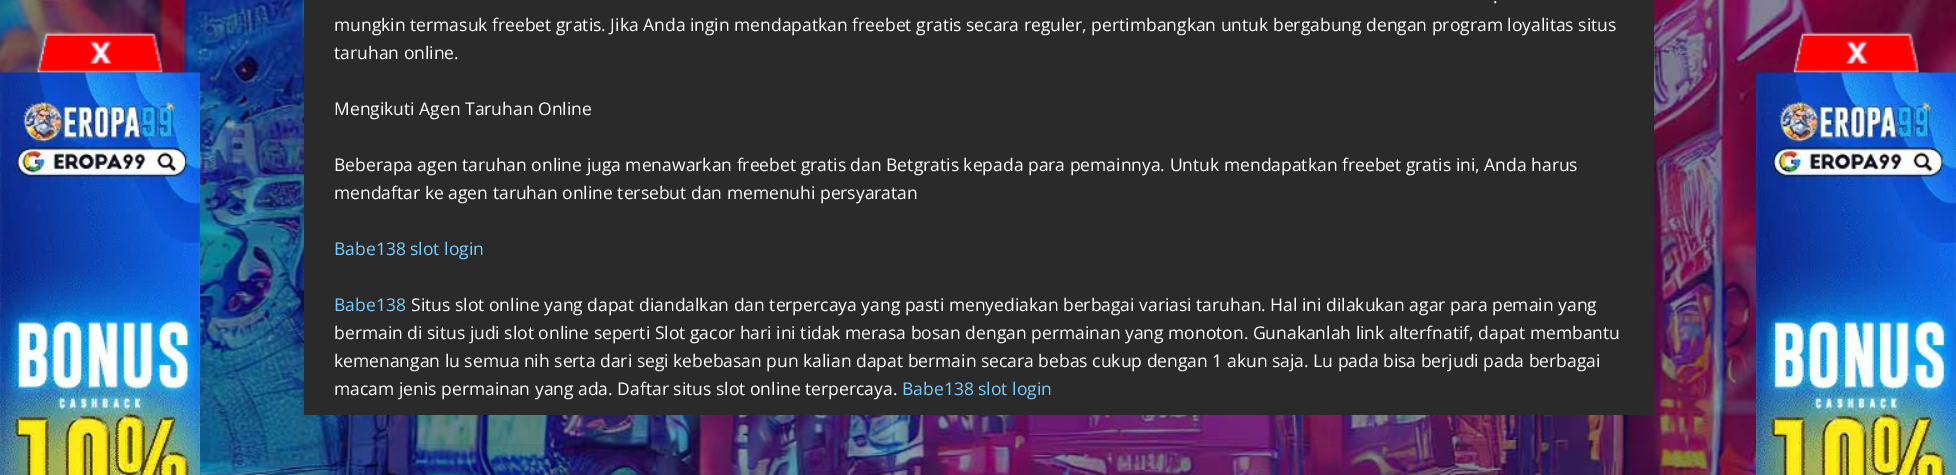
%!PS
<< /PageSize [1956 475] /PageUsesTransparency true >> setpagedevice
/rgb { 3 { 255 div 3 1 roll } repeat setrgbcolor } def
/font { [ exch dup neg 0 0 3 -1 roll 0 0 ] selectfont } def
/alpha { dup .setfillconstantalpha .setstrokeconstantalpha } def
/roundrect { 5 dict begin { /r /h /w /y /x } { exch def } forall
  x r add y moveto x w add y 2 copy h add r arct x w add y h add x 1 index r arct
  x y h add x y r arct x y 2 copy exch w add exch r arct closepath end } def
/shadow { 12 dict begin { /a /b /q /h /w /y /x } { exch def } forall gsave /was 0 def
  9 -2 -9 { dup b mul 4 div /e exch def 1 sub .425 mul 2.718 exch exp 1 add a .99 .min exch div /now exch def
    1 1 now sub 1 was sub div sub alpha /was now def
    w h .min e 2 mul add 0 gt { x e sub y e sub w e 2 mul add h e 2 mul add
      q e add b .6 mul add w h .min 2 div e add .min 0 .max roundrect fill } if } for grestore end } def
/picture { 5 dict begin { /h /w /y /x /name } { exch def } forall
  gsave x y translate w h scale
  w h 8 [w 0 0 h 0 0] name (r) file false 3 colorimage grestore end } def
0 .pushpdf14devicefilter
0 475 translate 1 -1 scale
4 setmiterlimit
255 255 255 rgb
0 0 1956 475 rectfill
(img/1.rgb) 0 0 1956 475 picture
gsave
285 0 moveto 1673 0 lineto 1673 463 lineto 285 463 lineto closepath 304 -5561 moveto 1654 -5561 lineto 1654 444 lineto 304 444 lineto closepath eoclip newpath
50 50 50 rgb
304 -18 1350 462 0 6 0.17 shadow
grestore
(img/2.rgb) 37 32 126 41 picture
(img/3.rgb) 0 72 200 403 picture
42 42 42 rgb
304 0 1350 415 rectfill
(img/4.rgb) 1793 32 126 41 picture
(img/5.rgb) 1756 72 200 403 picture
/OpenSans-Regular 17.5 font
255 255 255 rgb
[
  [(.) 1493 3]
  [(mungkin termasuk freebet gratis. Jika Anda ingin mendapatkan freebet gratis secara reguler, pertimbangkan untuk bergabung dengan program loyalitas situs) 334 31]
  [(taruhan online.) 334 59]
  [(Mengikuti Agen Taruhan Online) 334 115]
  [(Beberapa agen taruhan online juga menawarkan freebet gratis dan Betgratis kepada para pemainnya. Untuk mendapatkan freebet gratis ini, Anda harus) 334 171]
  [(mendaftar ke agen taruhan online tersebut dan memenuhi persyaratan) 334 199]
] { aload pop moveto show } forall
117 204 255 rgb
334 255 moveto (Babe138 slot login) show
334 311 moveto (Babe138) show
255 255 255 rgb
[
  [(Situs slot online yang dapat diandalkan dan terpercaya yang pasti menyediakan berbagai variasi taruhan. Hal ini dilakukan agar para pemain yang) 411 311]
  [(bermain di situs judi slot online seperti Slot gacor hari ini tidak merasa bosan dengan permainan yang monoton. Gunakanlah link alterfnatif, dapat membantu) 334 339]
  [(kemenangan lu semua nih serta dari segi kebebasan pun kalian dapat bermain secara bebas cukup dengan 1 akun saja. Lu pada bisa berjudi pada berbagai) 334 367]
  [(macam jenis permainan yang ada. Daftar situs slot online terpercaya.) 334 395]
] { aload pop moveto show } forall
117 204 255 rgb
902 395 moveto (Babe138 slot login) show
.poppdf14devicefilter showpage
